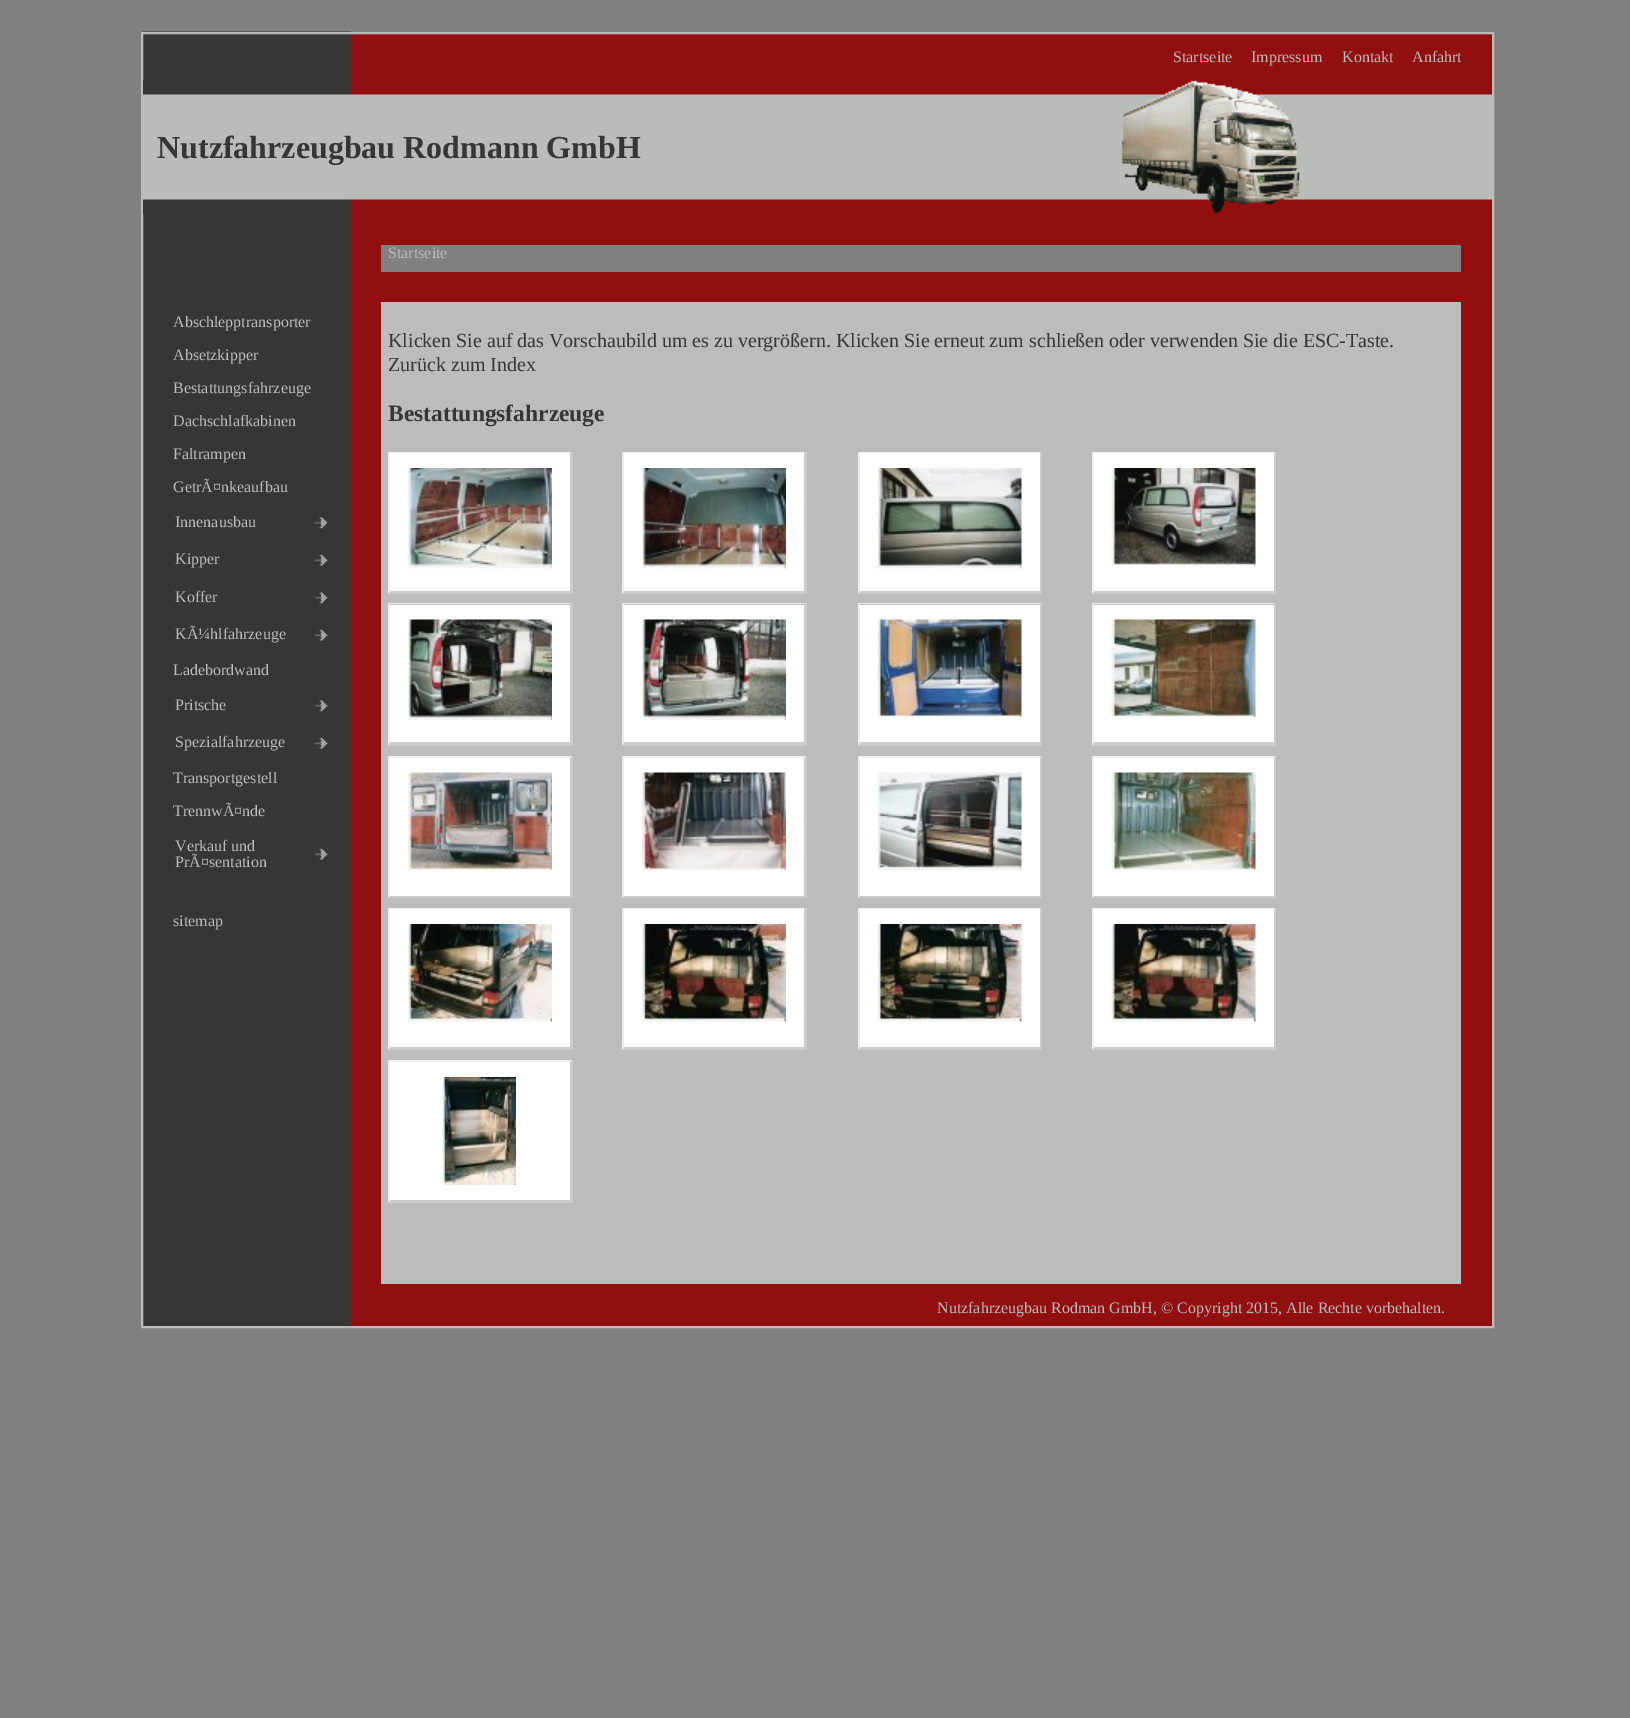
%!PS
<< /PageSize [1630 1718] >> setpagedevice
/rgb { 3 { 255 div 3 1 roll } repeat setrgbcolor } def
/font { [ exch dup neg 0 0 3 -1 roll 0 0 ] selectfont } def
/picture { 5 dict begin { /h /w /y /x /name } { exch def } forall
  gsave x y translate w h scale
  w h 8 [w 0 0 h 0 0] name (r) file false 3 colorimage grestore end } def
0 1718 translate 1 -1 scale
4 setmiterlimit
128 128 128 rgb
0 0 1630 1718 rectfill
146 15 15 rgb
350 34 1142 1292 rectfill
(img/1.rgb) 142 31 210 1295 picture
188 188 188 rgb
2 setlinewidth
142 33 1351 1294 rectstroke
(img/2.rgb) 143 80 1349 134 picture
(img/3.rgb) 314 517 14 12 picture
(img/4.rgb) 314 554 14 12 picture
(img/3.rgb) 314 592 14 12 picture
(img/4.rgb) 314 629 14 12 picture
(img/3.rgb) 314 700 14 12 picture
(img/4.rgb) 314 737 14 12 picture
(img/4.rgb) 314 848 14 12 picture
[
  [381 245 1080 27 128 128 128]
  [381 302 1080 982 188 188 188]
  [390 453 180 138 255 255 255]
] { aload pop rgb rectfill } forall
238 238 238 rgb
388 452 moveto 573 452 lineto 570 453 lineto 390 453 lineto closepath fill
204 204 204 rgb
573 452 moveto 573 594 lineto 570 591 lineto 570 453 lineto closepath fill
573 594 moveto 388 594 lineto 390 591 lineto 570 591 lineto closepath fill
238 238 238 rgb
388 594 moveto 388 452 lineto 390 453 lineto 390 591 lineto closepath fill
(img/5.rgb) 408 468 144 101 picture
255 255 255 rgb
624 453 180 138 rectfill
238 238 238 rgb
622 452 moveto 807 452 lineto 804 453 lineto 624 453 lineto closepath fill
204 204 204 rgb
807 452 moveto 807 594 lineto 804 591 lineto 804 453 lineto closepath fill
807 594 moveto 622 594 lineto 624 591 lineto 804 591 lineto closepath fill
238 238 238 rgb
622 594 moveto 622 452 lineto 624 453 lineto 624 591 lineto closepath fill
(img/6.rgb) 642 468 144 101 picture
255 255 255 rgb
860 453 180 138 rectfill
238 238 238 rgb
858 452 moveto 1042 452 lineto 1040 453 lineto 860 453 lineto closepath fill
204 204 204 rgb
1042 452 moveto 1042 594 lineto 1040 591 lineto 1040 453 lineto closepath fill
1042 594 moveto 858 594 lineto 860 591 lineto 1040 591 lineto closepath fill
238 238 238 rgb
858 594 moveto 858 452 lineto 860 453 lineto 860 591 lineto closepath fill
(img/7.rgb) 877 468 145 101 picture
255 255 255 rgb
1094 453 180 138 rectfill
238 238 238 rgb
1092 452 moveto 1276 452 lineto 1274 453 lineto 1094 453 lineto closepath fill
204 204 204 rgb
1276 452 moveto 1276 594 lineto 1274 591 lineto 1274 453 lineto closepath fill
1276 594 moveto 1092 594 lineto 1094 591 lineto 1274 591 lineto closepath fill
238 238 238 rgb
1092 594 moveto 1092 452 lineto 1094 453 lineto 1094 591 lineto closepath fill
(img/8.rgb) 1111 468 145 98 picture
255 255 255 rgb
390 605 180 137 rectfill
238 238 238 rgb
388 603 moveto 573 603 lineto 570 604 lineto 390 604 lineto closepath fill
204 204 204 rgb
573 603 moveto 573 746 lineto 570 742 lineto 570 604 lineto closepath fill
573 746 moveto 388 746 lineto 390 742 lineto 570 742 lineto closepath fill
238 238 238 rgb
388 746 moveto 388 603 lineto 390 604 lineto 390 742 lineto closepath fill
(img/9.rgb) 408 619 144 101 picture
255 255 255 rgb
624 605 180 137 rectfill
238 238 238 rgb
622 603 moveto 807 603 lineto 804 604 lineto 624 604 lineto closepath fill
204 204 204 rgb
807 603 moveto 807 746 lineto 804 742 lineto 804 604 lineto closepath fill
807 746 moveto 622 746 lineto 624 742 lineto 804 742 lineto closepath fill
238 238 238 rgb
622 746 moveto 622 603 lineto 624 604 lineto 624 742 lineto closepath fill
(img/10.rgb) 642 619 144 101 picture
255 255 255 rgb
860 605 180 137 rectfill
238 238 238 rgb
858 603 moveto 1042 603 lineto 1040 604 lineto 860 604 lineto closepath fill
204 204 204 rgb
1042 603 moveto 1042 746 lineto 1040 742 lineto 1040 604 lineto closepath fill
1042 746 moveto 858 746 lineto 860 742 lineto 1040 742 lineto closepath fill
238 238 238 rgb
858 746 moveto 858 603 lineto 860 604 lineto 860 742 lineto closepath fill
(img/11.rgb) 877 619 145 98 picture
255 255 255 rgb
1094 605 180 137 rectfill
238 238 238 rgb
1092 603 moveto 1276 603 lineto 1274 604 lineto 1094 604 lineto closepath fill
204 204 204 rgb
1276 603 moveto 1276 746 lineto 1274 742 lineto 1274 604 lineto closepath fill
1276 746 moveto 1092 746 lineto 1094 742 lineto 1274 742 lineto closepath fill
238 238 238 rgb
1092 746 moveto 1092 603 lineto 1094 604 lineto 1094 742 lineto closepath fill
(img/12.rgb) 1111 619 145 98 picture
255 255 255 rgb
390 758 180 138 rectfill
238 238 238 rgb
388 756 moveto 573 756 lineto 570 758 lineto 390 758 lineto closepath fill
204 204 204 rgb
573 756 moveto 573 898 lineto 570 896 lineto 570 758 lineto closepath fill
573 898 moveto 388 898 lineto 390 896 lineto 570 896 lineto closepath fill
238 238 238 rgb
388 898 moveto 388 756 lineto 390 758 lineto 390 896 lineto closepath fill
(img/13.rgb) 408 772 144 98 picture
255 255 255 rgb
624 758 180 138 rectfill
238 238 238 rgb
622 756 moveto 807 756 lineto 804 758 lineto 624 758 lineto closepath fill
204 204 204 rgb
807 756 moveto 807 898 lineto 804 896 lineto 804 758 lineto closepath fill
807 898 moveto 622 898 lineto 624 896 lineto 804 896 lineto closepath fill
238 238 238 rgb
622 898 moveto 622 756 lineto 624 758 lineto 624 896 lineto closepath fill
(img/14.rgb) 642 772 144 98 picture
255 255 255 rgb
860 758 180 138 rectfill
238 238 238 rgb
858 756 moveto 1042 756 lineto 1040 758 lineto 860 758 lineto closepath fill
204 204 204 rgb
1042 756 moveto 1042 898 lineto 1040 896 lineto 1040 758 lineto closepath fill
1042 898 moveto 858 898 lineto 860 896 lineto 1040 896 lineto closepath fill
238 238 238 rgb
858 898 moveto 858 756 lineto 860 758 lineto 860 896 lineto closepath fill
(img/15.rgb) 877 772 145 98 picture
255 255 255 rgb
1094 758 180 138 rectfill
238 238 238 rgb
1092 756 moveto 1276 756 lineto 1274 758 lineto 1094 758 lineto closepath fill
204 204 204 rgb
1276 756 moveto 1276 898 lineto 1274 896 lineto 1274 758 lineto closepath fill
1276 898 moveto 1092 898 lineto 1094 896 lineto 1274 896 lineto closepath fill
238 238 238 rgb
1092 898 moveto 1092 756 lineto 1094 758 lineto 1094 896 lineto closepath fill
(img/16.rgb) 1111 772 145 98 picture
255 255 255 rgb
390 909 180 138 rectfill
238 238 238 rgb
388 908 moveto 573 908 lineto 570 909 lineto 390 909 lineto closepath fill
204 204 204 rgb
573 908 moveto 573 1050 lineto 570 1047 lineto 570 909 lineto closepath fill
573 1050 moveto 388 1050 lineto 390 1047 lineto 570 1047 lineto closepath fill
238 238 238 rgb
388 1050 moveto 388 908 lineto 390 909 lineto 390 1047 lineto closepath fill
(img/17.rgb) 408 924 144 98 picture
255 255 255 rgb
624 909 180 138 rectfill
238 238 238 rgb
622 908 moveto 807 908 lineto 804 909 lineto 624 909 lineto closepath fill
204 204 204 rgb
807 908 moveto 807 1050 lineto 804 1047 lineto 804 909 lineto closepath fill
807 1050 moveto 622 1050 lineto 624 1047 lineto 804 1047 lineto closepath fill
238 238 238 rgb
622 1050 moveto 622 908 lineto 624 909 lineto 624 1047 lineto closepath fill
(img/18.rgb) 642 924 144 98 picture
255 255 255 rgb
860 909 180 138 rectfill
238 238 238 rgb
858 908 moveto 1042 908 lineto 1040 909 lineto 860 909 lineto closepath fill
204 204 204 rgb
1042 908 moveto 1042 1050 lineto 1040 1047 lineto 1040 909 lineto closepath fill
1042 1050 moveto 858 1050 lineto 860 1047 lineto 1040 1047 lineto closepath fill
238 238 238 rgb
858 1050 moveto 858 908 lineto 860 909 lineto 860 1047 lineto closepath fill
(img/19.rgb) 877 924 145 98 picture
255 255 255 rgb
1094 909 180 138 rectfill
238 238 238 rgb
1092 908 moveto 1276 908 lineto 1274 909 lineto 1094 909 lineto closepath fill
204 204 204 rgb
1276 908 moveto 1276 1050 lineto 1274 1047 lineto 1274 909 lineto closepath fill
1276 1050 moveto 1092 1050 lineto 1094 1047 lineto 1274 1047 lineto closepath fill
238 238 238 rgb
1092 1050 moveto 1092 908 lineto 1094 909 lineto 1094 1047 lineto closepath fill
(img/20.rgb) 1111 924 145 98 picture
255 255 255 rgb
390 1062 180 138 rectfill
238 238 238 rgb
388 1060 moveto 573 1060 lineto 570 1062 lineto 390 1062 lineto closepath fill
204 204 204 rgb
573 1060 moveto 573 1203 lineto 570 1200 lineto 570 1062 lineto closepath fill
573 1203 moveto 388 1203 lineto 390 1200 lineto 570 1200 lineto closepath fill
238 238 238 rgb
388 1203 moveto 388 1060 lineto 390 1062 lineto 390 1200 lineto closepath fill
(img/21.rgb) 442 1077 74 108 picture
/LiberationSerif-Regular 16 font
188 188 188 rgb
[
  [(Startseite) 1173 62]
  [(Impressum) 1251 62]
  [(Kontakt) 1342 62]
  [(Anfahrt) 1412 62]
] { aload pop moveto show } forall
/LiberationSerif-Bold 32 font
54 54 54 rgb
157 158 moveto (Nutzfahrzeugbau Rodmann GmbH) show
/LiberationSerif-Regular 16 font
188 188 188 rgb
[
  [(Abschlepptransporter) 173 327]
  [(Absetzkipper) 173 360]
  [(Bestattungsfahrzeuge) 173 393]
  [(Dachschlafkabinen) 173 426]
  [(Faltrampen) 173 459]
  [(GetrÃ¤nkeaufbau) 173 492]
  [(Innenausbau) 175 527]
  [(Kipper) 175 564]
  [(Koffer) 175 602]
  [(KÃ¼hlfahrzeuge) 175 639]
  [(Ladebordwand) 173 675]
  [(Pritsche) 175 710]
  [(Spezialfahrzeuge) 175 747]
  [(Transportgestell) 173 783]
  [(TrennwÃ¤nde) 173 816]
  [(Verkauf und) 175 851]
  [(PrÃ¤sentation) 175 867]
  [(sitemap) 173 926]
  [(Startseite) 388 258]
] { aload pop moveto show } forall
/LiberationSerif-Regular 20 font
54 54 54 rgb
388 347 moveto (Klicken Sie auf das Vorschaubild um es zu vergrößern. Klicken Sie erneut zum schließen oder verwenden Sie die ESC-Taste.) show
388 371 moveto (Zurück zum Index) show
/LiberationSerif-Bold 23.5 font
388 421 moveto (Bestattungsfahrzeuge) show
/LiberationSerif-Regular 16 font
188 188 188 rgb
937 1313 moveto (Nutzfahrzeugbau Rodman GmbH, © Copyright 2015, Alle Rechte vorbehalten.) show
showpage
